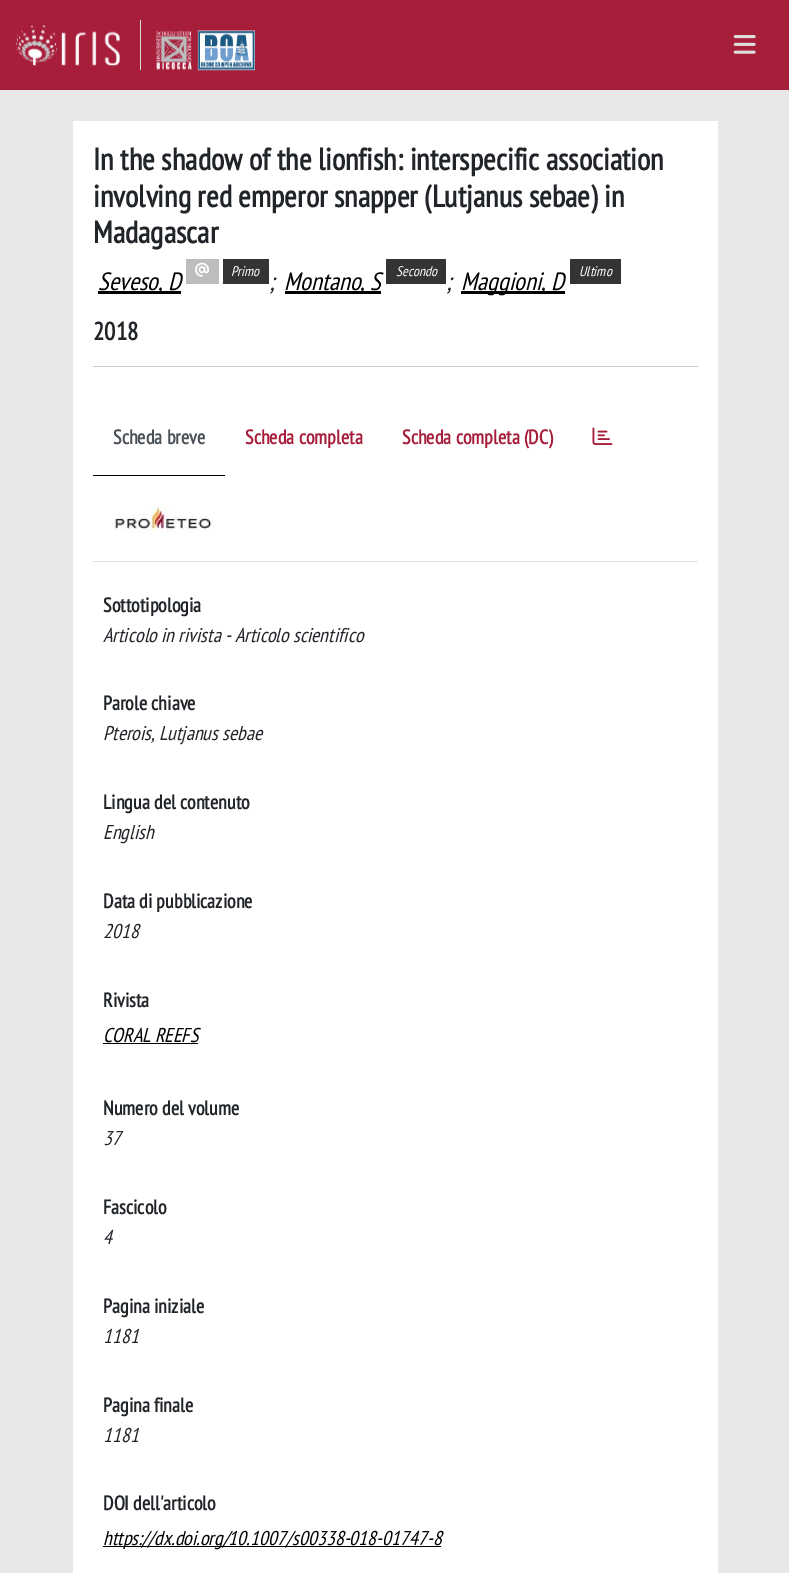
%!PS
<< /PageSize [789 1573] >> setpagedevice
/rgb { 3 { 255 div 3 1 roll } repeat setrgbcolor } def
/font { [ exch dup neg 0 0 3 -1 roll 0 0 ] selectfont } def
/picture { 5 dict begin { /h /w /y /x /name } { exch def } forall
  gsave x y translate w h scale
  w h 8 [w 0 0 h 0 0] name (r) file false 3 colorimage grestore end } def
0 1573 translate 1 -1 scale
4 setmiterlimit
232 232 232 rgb
0 0 789 1573 rectfill
167 30 59 rgb
0 0 789 90 rectfill
221 221 221 rgb
140 20 1 50 rectfill
(img/1.rgb) 15 25 105 41 picture
(img/2.rgb) 156 30 99 41 picture
(img/3.rgb) 733 35 23 19 picture
[
  [73 121 645 1452 255 255 255]
  [98 291 83 3 0 0 0]
  [186 259 33 25 187 189 190]
] { aload pop rgb rectfill } forall
(img/4.rgb) 195 262 14 15 picture
[
  [223 259 46 25 52 52 52]
  [285 291 96 3 0 0 0]
  [386 259 60 25 52 52 52]
  [461 291 104 3 0 0 0]
  [570 259 51 25 52 52 52]
  [93 366 605 1 200 201 202]
  [93 561 605 1 222 226 230]
  [93 475 132 1 0 0 0]
] { aload pop rgb rectfill } forall
(img/5.rgb) 592 427 21 18 picture
(img/6.rgb) 114 506 98 26 picture
103 1043 95 1 rectfill
103 1546 338 1 rectfill
/PTSansNarrow-Bold 30.75 font
33 37 41 rgb
[
  [(In the shadow of the lionfish: interspecific association) 93 170]
  [(involving red emperor snapper \(Lutjanus sebae\) in) 93 207]
  [(Madagascar) 93 243]
] { aload pop moveto show } forall
/PTSansNarrow-Italic 25 font
0 0 0 rgb
98 290 moveto (Seveso, D) show
/PTSansNarrow-Italic 14 font
255 255 255 rgb
231 276 moveto (Primo) show
/PTSansNarrow-Italic 25 font
33 37 41 rgb
269 290 moveto (;) show
0 0 0 rgb
284 290 moveto (Montano, S) show
/PTSansNarrow-Italic 14 font
255 255 255 rgb
396 276 moveto (Secondo) show
/PTSansNarrow-Italic 25 font
33 37 41 rgb
446 290 moveto (;) show
0 0 0 rgb
461 290 moveto (Maggioni, D) show
/PTSansNarrow-Italic 14 font
255 255 255 rgb
579 276 moveto (Ultimo) show
/PTSansNarrow-Bold 25 font
33 37 41 rgb
93 340 moveto (2018) show
/PTSansNarrow-Bold 20 font
73 80 87 rgb
113 444 moveto (Scheda breve) show
167 30 59 rgb
245 444 moveto (Scheda completa) show
402 444 moveto (Scheda completa \(DC\)) show
33 37 41 rgb
103 612 moveto (Sottotipologia) show
/PTSansNarrow-Italic 20 font
103 642 moveto (Articolo in rivista - Articolo scientifico) show
/PTSansNarrow-Bold 20 font
103 710 moveto (Parole chiave) show
/PTSansNarrow-Italic 20 font
103 740 moveto (Pterois, Lutjanus sebae) show
/PTSansNarrow-Bold 20 font
103 809 moveto (Lingua del contenuto) show
/PTSansNarrow-Italic 20 font
103 839 moveto (English) show
/PTSansNarrow-Bold 20 font
103 908 moveto (Data di pubblicazione) show
/PTSansNarrow-Italic 20 font
103 938 moveto (2018) show
/PTSansNarrow-Bold 20 font
103 1007 moveto (Rivista) show
/PTSansNarrow-Italic 20 font
0 0 0 rgb
103 1042 moveto (CORAL REEFS) show
/PTSansNarrow-Bold 20 font
33 37 41 rgb
103 1115 moveto (Numero del volume) show
/PTSansNarrow-Italic 20 font
103 1145 moveto (37) show
/PTSansNarrow-Bold 20 font
103 1214 moveto (Fascicolo) show
/PTSansNarrow-Italic 20 font
103 1244 moveto (4) show
/PTSansNarrow-Bold 20 font
103 1313 moveto (Pagina iniziale) show
/PTSansNarrow-Italic 20 font
103 1343 moveto (1181) show
/PTSansNarrow-Bold 20 font
103 1412 moveto (Pagina finale) show
/PTSansNarrow-Italic 20 font
103 1442 moveto (1181) show
/PTSansNarrow-Bold 20 font
103 1510 moveto (DOI dell'articolo) show
/PTSansNarrow-Italic 20 font
0 0 0 rgb
103 1545 moveto (https://dx.doi.org/10.1007/s00338-018-01747-8) show
showpage
